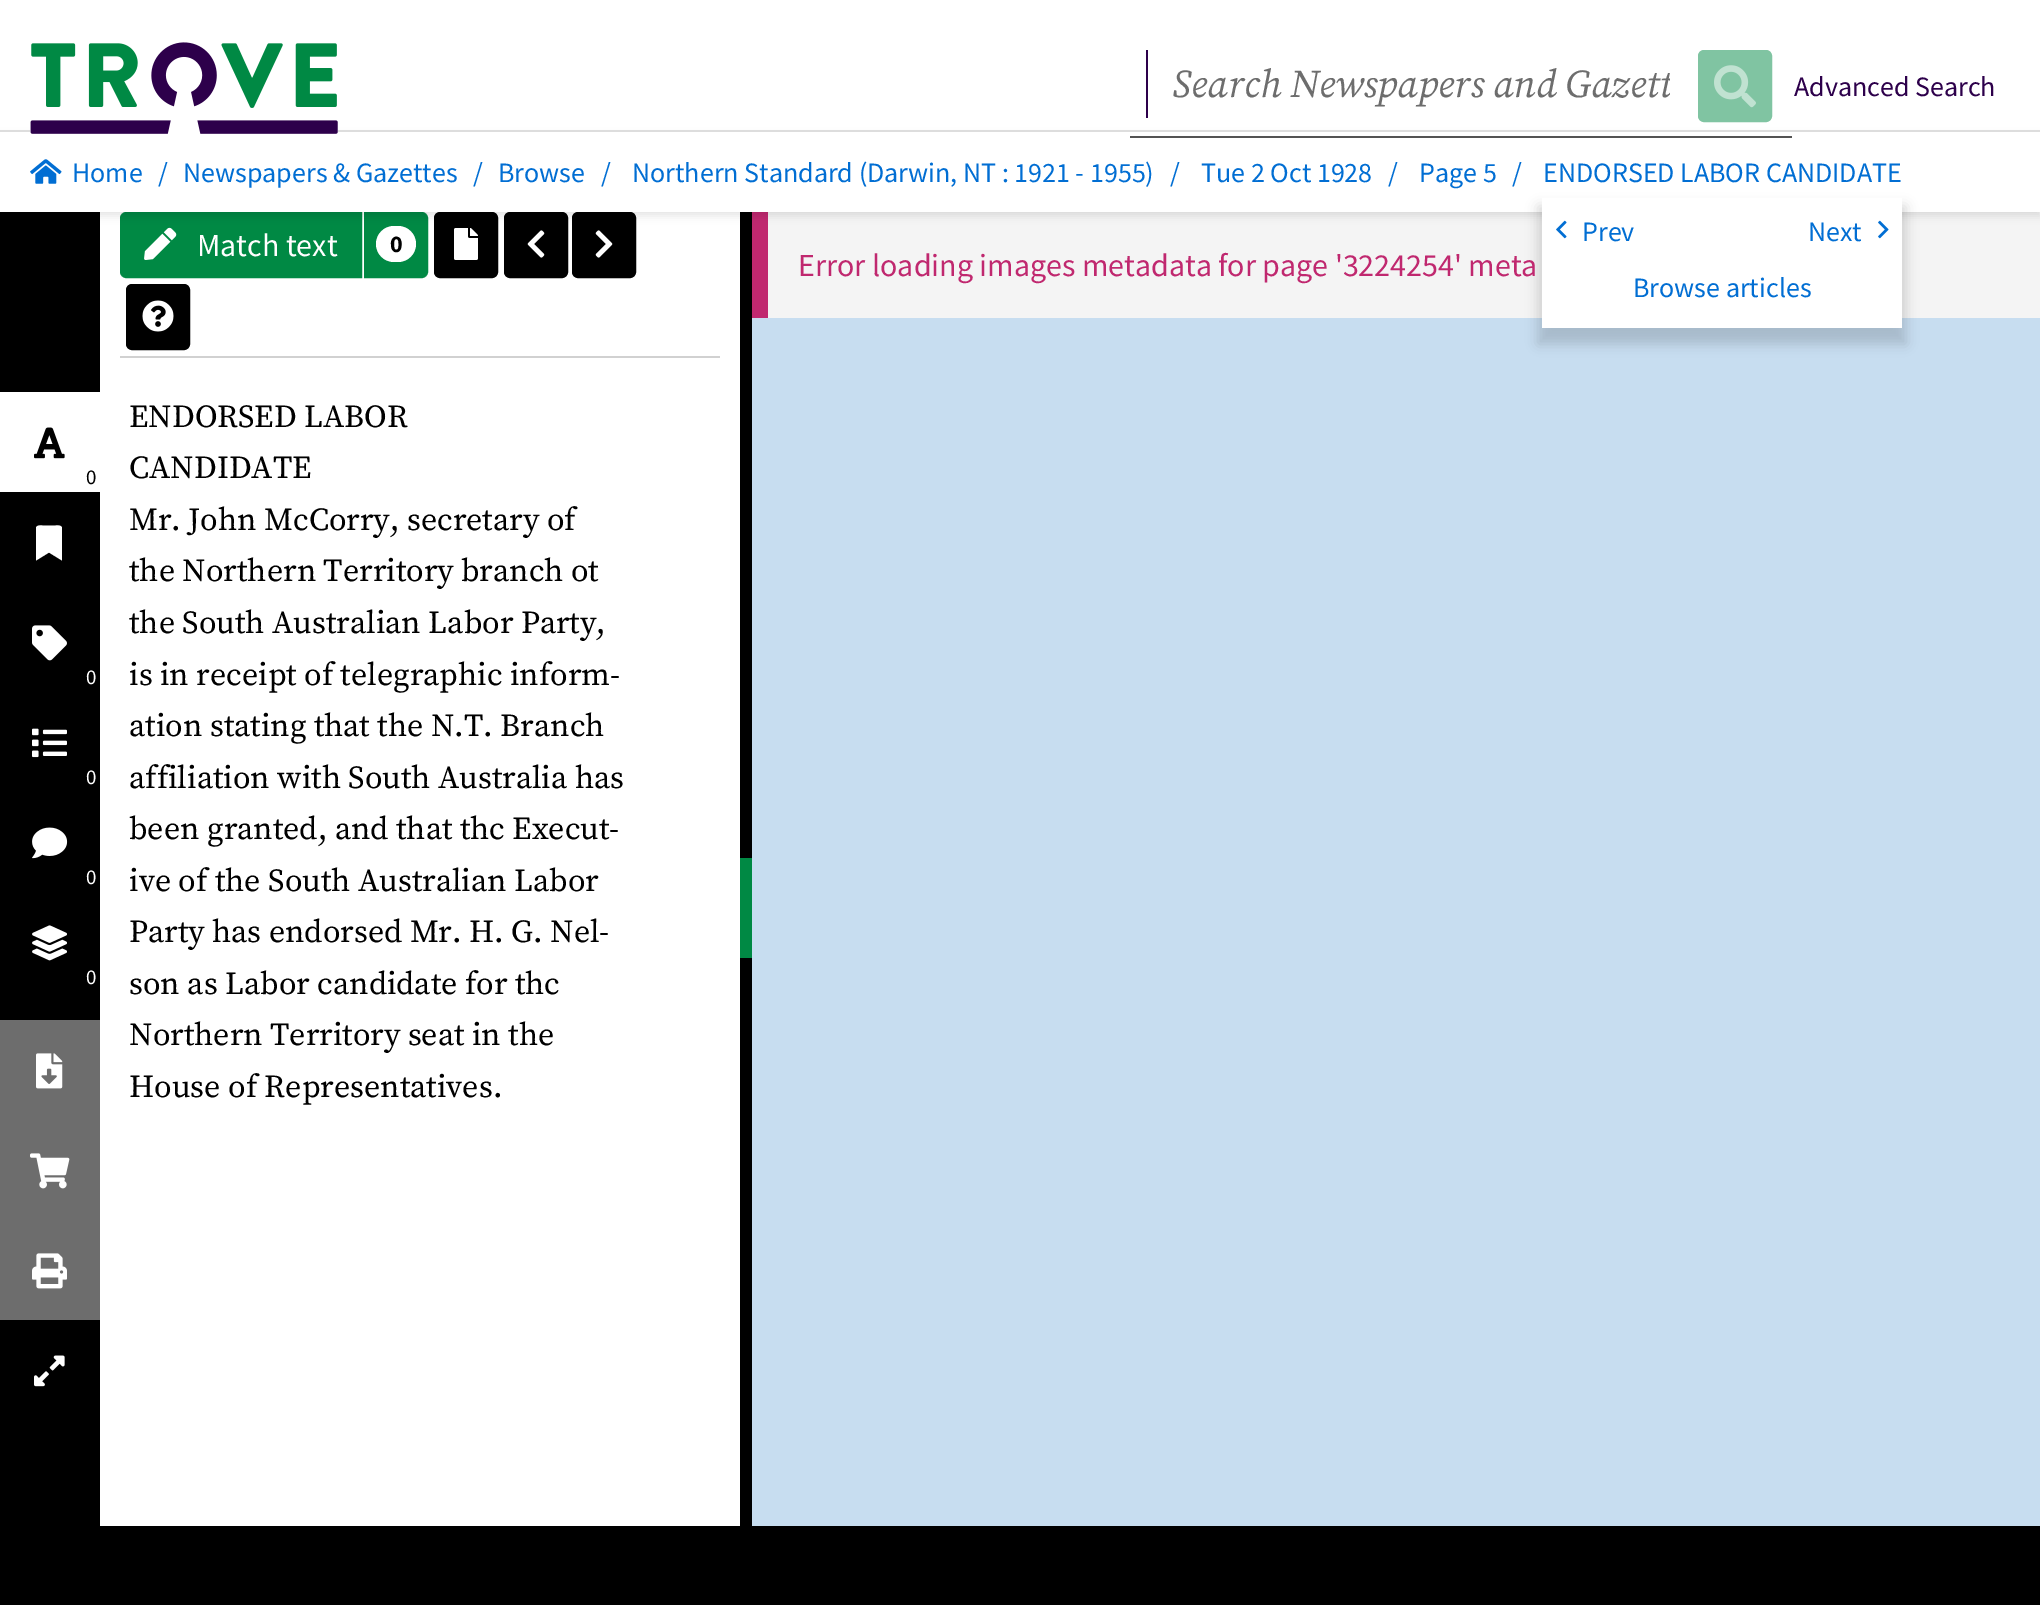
%!PS
<< /PageSize [2040 1605] /PageUsesTransparency true >> setpagedevice
/rgb { 3 { 255 div 3 1 roll } repeat setrgbcolor } def
/font { [ exch dup neg 0 0 3 -1 roll 0 0 ] selectfont } def
/alpha { dup .setfillconstantalpha .setstrokeconstantalpha } def
/roundrect { 5 dict begin { /r /h /w /y /x } { exch def } forall
  x r add y moveto x w add y 2 copy h add r arct x w add y h add x 1 index r arct
  x y h add x y r arct x y 2 copy exch w add exch r arct closepath end } def
/shadow { 12 dict begin { /a /b /q /h /w /y /x } { exch def } forall gsave /was 0 def
  9 -2 -9 { dup b mul 4 div /e exch def 1 sub .425 mul 2.718 exch exp 1 add a .99 .min exch div /now exch def
    1 1 now sub 1 was sub div sub alpha /was now def
    w h .min e 2 mul add 0 gt { x e sub y e sub w e 2 mul add h e 2 mul add
      q e add b .6 mul add w h .min 2 div e add .min 0 .max roundrect fill } if } for grestore end } def
/picture { 5 dict begin { /h /w /y /x /name } { exch def } forall
  gsave x y translate w h scale
  w h 8 [w 0 0 h 0 0] name (r) file false 3 colorimage grestore end } def
0 .pushpdf14devicefilter
0 1605 translate 1 -1 scale
4 setmiterlimit
255 255 255 rgb
0 0 2040 1605 rectfill
0 0 0 rgb
0 212 100 1314 rectfill
0 137 68 rgb
126 214 moveto 360 214 lineto 360 276 lineto 126 276 lineto 124 276 122 274 122 272 curveto 122 218 lineto 122 216 124 214 126 214 curveto closepath gsave fill grestore
4 setlinewidth
stroke
(img/15.rgb) 144 227 33 33 picture
366 214 moveto 422 214 lineto 424 214 426 216 426 218 curveto 426 272 lineto 426 274 424 276 422 276 curveto 366 276 lineto closepath gsave fill grestore
stroke
255 255 255 rgb
376 226 40 36 18 roundrect fill
0 0 0 rgb
436 214 60 62 4 roundrect gsave fill grestore
stroke
(img/16.rgb) 454 228 24 32 picture
506 214 60 62 4 roundrect gsave fill grestore
stroke
574 214 60 62 4 roundrect gsave fill grestore
stroke
[
  [740 212 12 1314 0 0 0]
  [768 212 1272 106 244 244 244]
  [752 212 16 106 192 40 111]
] { aload pop rgb rectfill } forall
0 0 0 rgb
0 136 2040 80 0 4 0.1 shadow
[
  [0 130 2040 2 221 221 221]
  [30 130 308 2 255 255 255]
  [0 132 2040 80 255 255 255]
] { aload pop rgb rectfill } forall
(img/1.rgb) 30 42 308 92 picture
45 0 75 rgb
1146 50 2 68 rectfill
128 196 162 rgb
1700 52 70 68 4 roundrect gsave fill grestore
stroke
(img/2.rgb) 1714 65 42 43 picture
83 83 83 rgb
1130 136 662 2 rectfill
(img/3.rgb) 30 159 32 25 picture
199 221 240 rgb
752 318 1288 1208 rectfill
0 0 0 rgb
1538 206 368 138 0 6 0.15 shadow
255 255 255 rgb
1542 198 360 130 rectfill
(img/4.rgb) 1556 220 11 19 picture
(img/5.rgb) 1878 220 11 19 picture
0 392 100 100 rectfill
(img/6.rgb) 34 427 31 32 picture
36 560.5 moveto 36 528 lineto 36.5 525 40 525.5 42.5 525.5 curveto 55.5 525.5 lineto 58 525.5 61.5 525 62 528 curveto 62 560.5 lineto 49 552.5 lineto closepath fill
(img/7.rgb) 32 625 35 36 picture
(img/8.rgb) 32 728 35 30 picture
(img/9.rgb) 32 827 36 32 picture
(img/10.rgb) 32 925 35 36 picture
109 109 109 rgb
0 1020 100 300 rectfill
(img/11.rgb) 36 1053 27 36 picture
(img/12.rgb) 30 1153 40 36 picture
(img/13.rgb) 32 1253 35 36 picture
(img/14.rgb) 34 1355 31 32 picture
(img/17.rgb) 527 230 18 28 picture
(img/18.rgb) 595 230 18 28 picture
0 0 0 rgb
128 286 60 62 4 roundrect gsave fill grestore
stroke
(img/19.rgb) 142 300 32 32 picture
[
  [120 356 600 2 209 209 209]
  [740 858 12 100 0 137 68]
  [0 1526 2040 79 0 0 0]
] { aload pop rgb rectfill } forall
gsave
1172 58 498 54 rectclip
/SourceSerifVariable-Italic 39.25 font
109 109 109 rgb
1172 97 moveto (Search Newspapers and Gazett) show
grestore
/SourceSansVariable-Regular 28 font
45 0 75 rgb
1794 96 moveto (Advanced Search) show
1 110 211 rgb
[
  [(Home) 72 182]
  [(/) 158 182]
  [(Newspapers & Gazettes) 183 182]
  [(/) 473 182]
  [(Browse) 498 182]
  [(/) 601 182]
  [(Northern Standard \(Darwin, NT : 1921 - 1955\)) 632 182]
  [(/) 1170 182]
  [(Tue 2 Oct 1928) 1201 182]
  [(/) 1388 182]
  [(Page 5) 1419 182]
  [(/) 1512 182]
  [(ENDORSED LABOR CANDIDATE) 1543 182]
  [(Prev) 1582 241]
  [(Next) 1808 241]
  [(Browse articles) 1633 297]
] { aload pop moveto show } forall
/SourceSansVariable-Regular 21 font
0 0 0 rgb
86 484 moveto (0) show
255 255 255 rgb
[
  [(0) 86 684]
  [(0) 86 784]
  [(0) 86 884]
  [(0) 86 984]
] { aload pop moveto show } forall
/SourceSansVariable-Regular 32 font
197 256 moveto (Match text) show
/SourceSansVariable-Bold 24 font
0 0 0 rgb
390 252 moveto (0) show
/SourceSerifVariable-Regular 32 font
[
  [(ENDORSED LABOR) 129 427]
  [(CANDIDATE) 129 478]
  [(Mr. John McCorry, secretary of) 129 530]
  [(the Northern Territory branch ot) 129 581]
  [(the South Australian Labor Party,) 129 633]
  [(is in receipt of telegraphic inform-) 129 685]
  [(ation stating that the N.T. Branch) 129 736]
  [(affiliation with South Australia has) 129 788]
  [(been granted, and that thc Execut-) 129 839]
  [(ive of the South Australian Labor) 129 891]
  [(Party has endorsed Mr. H. G. Nel-) 129 942]
  [(son as Labor candidate for thc) 129 994]
  [(Northern Territory seat in the) 129 1045]
  [(House of Representatives.) 129 1097]
] { aload pop moveto show } forall
/SourceSansVariable-Regular 32 font
192 40 111 rgb
798 276 moveto (Error loading images metadata for page '3224254' meta) show
.poppdf14devicefilter showpage
